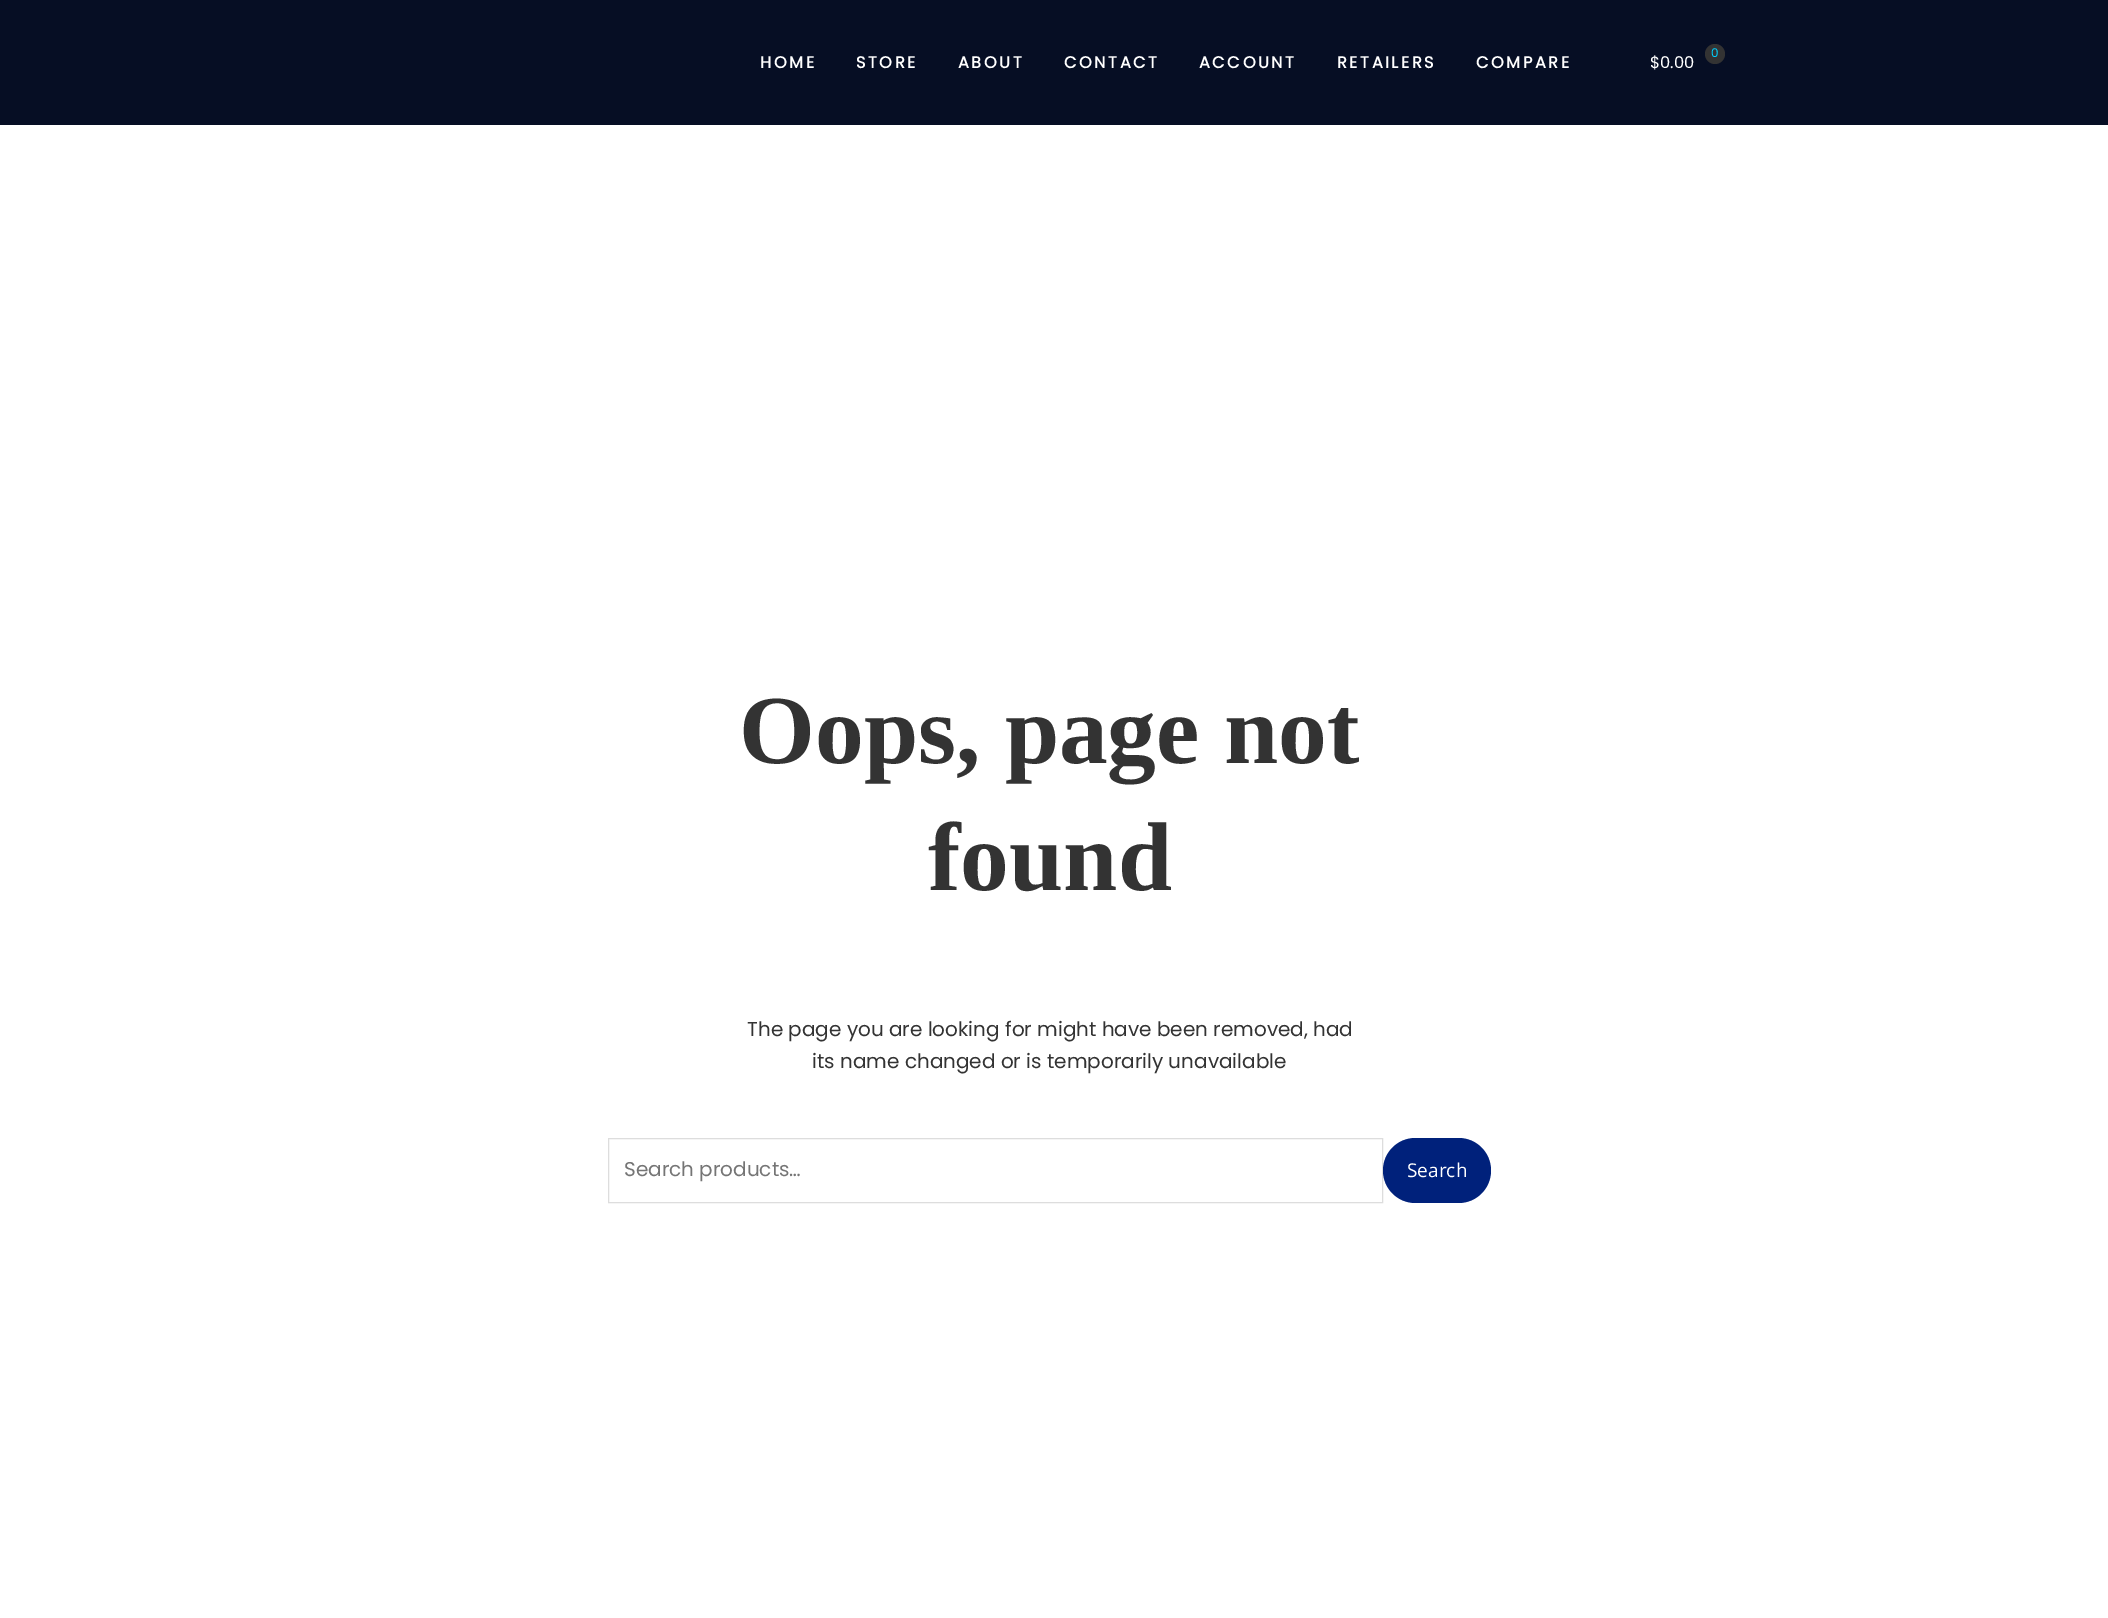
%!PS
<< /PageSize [2108 1618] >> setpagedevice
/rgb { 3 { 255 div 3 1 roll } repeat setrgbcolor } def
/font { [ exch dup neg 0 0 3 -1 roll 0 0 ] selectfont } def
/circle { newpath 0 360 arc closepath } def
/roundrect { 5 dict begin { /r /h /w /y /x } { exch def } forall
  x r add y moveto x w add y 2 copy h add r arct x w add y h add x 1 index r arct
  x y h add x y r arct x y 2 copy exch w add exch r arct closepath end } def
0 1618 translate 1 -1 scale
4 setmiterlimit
255 255 255 rgb
0 0 2108 1618 rectfill
6 14 36 rgb
0 0 2108 125 rectfill
51 51 51 rgb
1715 54 10 circle fill
221 221 221 rgb
608.5 1138.5 774 64 rectstroke
0 33 123 rgb
1383 1138 108 65 32.5 roundrect fill
/Poppins-Bold 16.25 font
255 255 255 rgb
760 68 moveto 2.5 0 (HOME) ashow
856 68 moveto 2.5 0 (STORE) ashow
958 68 moveto 2.5 0 (ABOUT) ashow
1064 68 moveto 2.5 0 (CONTACT) ashow
1199 68 moveto 2.5 0 (ACCOUNT) ashow
1337 68 moveto 2.5 0 (RETAILERS) ashow
1476 68 moveto 2.5 0 (COMPARE) ashow
/Poppins-Regular 12 font
0 208 254 rgb
1711 57 moveto (0) show
/Poppins-Regular 16.25 font
255 255 255 rgb
1650 68 moveto ($0.00) show
/LiberationSerif-Bold 97.5 font
51 51 51 rgb
739 763 moveto (Oops, page not) show
928 890 moveto (found) show
/Poppins-Regular 20 font
747 1036 moveto (The page you are looking for might have been removed, had) show
812 1068 moveto (its name changed or is temporarily unavailable) show
117 117 117 rgb
624 1176 moveto (Search products…) show
/OpenSans-Regular 19 font
255 255 255 rgb
1407 1177 moveto (Search) show
showpage
